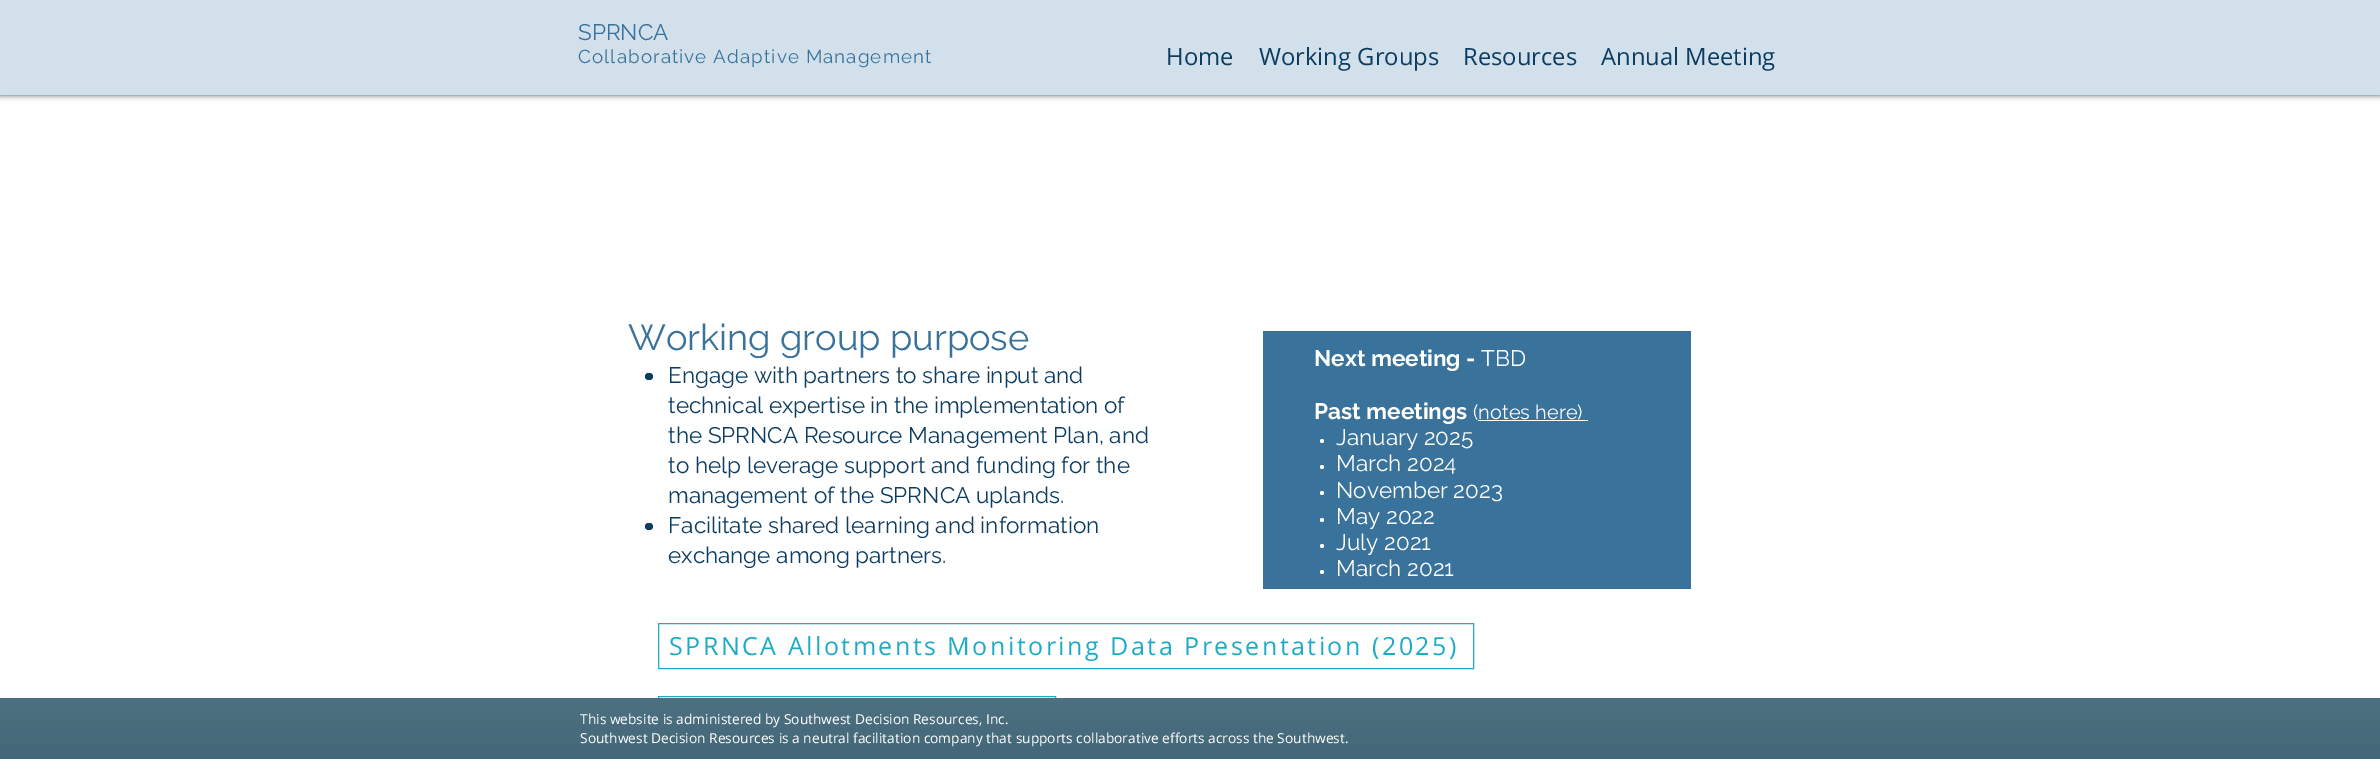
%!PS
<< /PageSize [2380 759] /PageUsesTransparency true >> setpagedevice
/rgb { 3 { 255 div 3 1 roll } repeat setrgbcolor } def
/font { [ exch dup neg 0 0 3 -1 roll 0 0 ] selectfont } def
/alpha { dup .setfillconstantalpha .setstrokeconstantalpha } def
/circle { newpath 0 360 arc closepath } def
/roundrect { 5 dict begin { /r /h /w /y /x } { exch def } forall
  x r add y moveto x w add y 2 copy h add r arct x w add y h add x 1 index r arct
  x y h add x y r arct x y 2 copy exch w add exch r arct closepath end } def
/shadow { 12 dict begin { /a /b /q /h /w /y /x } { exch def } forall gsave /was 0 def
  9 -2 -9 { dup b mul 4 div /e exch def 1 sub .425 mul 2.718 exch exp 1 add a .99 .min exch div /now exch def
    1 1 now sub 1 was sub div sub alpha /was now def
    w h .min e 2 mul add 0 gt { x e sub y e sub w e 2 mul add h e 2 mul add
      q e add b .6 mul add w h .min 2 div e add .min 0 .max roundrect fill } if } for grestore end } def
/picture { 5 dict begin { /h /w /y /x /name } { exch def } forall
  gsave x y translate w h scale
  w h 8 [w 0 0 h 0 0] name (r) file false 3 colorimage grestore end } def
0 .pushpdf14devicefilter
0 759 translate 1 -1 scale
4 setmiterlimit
255 255 255 rgb
0 0 2380 759 rectfill
0 0 0 rgb
0 0 2380 95 0 3 0.7 shadow
209 224 235 rgb
0 0 2380 95 rectfill
12 60 96 rgb
645 373 8 7 3.5 roundrect fill
645 523 8 7 3.5 roundrect fill
57 114 155 rgb
1263 331 428 258 rectfill
255 255 255 rgb
1478 420 110 1 rectfill
1322 441 2 circle fill
1322 467 2 circle fill
1322 493 2 circle fill
1322 520 2 circle fill
1322 546 2 circle fill
1322 572 2 circle fill
30 171 199 rgb
658.5 623.5 815 45 rectstroke
658.5 696.5 397 46 rectstroke
16 63 84 rgb
0 698 2380 61 rectfill
(img/1.rgb) 0 698 2380 61 picture
/Raleway-Regular 22.5 font
57 114 155 rgb
578 40 moveto (SPRNCA) show
/Raleway-Regular 18.75 font
578 63 moveto 1.1 0 (Collaborative Adaptive Management) ashow
/OpenSans-Regular 23.75 font
12 60 96 rgb
[
  [(Home) 1166 65]
  [(Working Groups) 1259 65]
  [(Resources) 1463 65]
  [(Annual Meeting) 1601 65]
] { aload pop moveto show } forall
/Raleway-Regular 36.25 font
57 114 155 rgb
628 350 moveto (Working group purpose) show
/Raleway-Regular 22.5 font
12 60 96 rgb
[
  [(Engage with partners to share input and) 668 383]
  [(technical expertise in the implementation of) 668 413]
  [(the SPRNCA Resource Management Plan, and) 668 443]
  [(to help leverage support and funding for the) 668 473]
  [(management of the SPRNCA uplands.) 668 503]
  [(Facilitate shared learning and information) 668 533]
  [(exchange among partners.) 668 563]
] { aload pop moveto show } forall
/Raleway-Bold 22.5 font
255 255 255 rgb
1314 366 moveto (Next meeting -) show
/Raleway-Regular 22.5 font
1481 366 moveto (TBD) show
/Raleway-Bold 22.5 font
1314 419 moveto (Past meetings) show
/Raleway-Regular 20 font
1473 419 moveto (\(notes here\)) show
/Raleway-Regular 22.5 font
[
  [(January 2025) 1336 445]
  [(March 2024) 1336 471]
  [(November 2023) 1336 498]
  [(May 2022) 1336 524]
  [(July 2021) 1336 550]
  [(March 2021) 1336 576]
] { aload pop moveto show } forall
/OpenSans-Regular 25 font
30 171 199 rgb
669 655 moveto 2.5 0 (SPRNCA Allotments Monitoring Data Presentation \(2025\)) ashow
/OpenSans-Regular 13.75 font
255 255 255 rgb
580 724 moveto (This website is administered by Southwest Decision Resources, Inc.) show
580 743 moveto (Southwest Decision Resources is a neutral facilitation company that supports collaborative efforts across the Southwest.) show
.poppdf14devicefilter showpage
